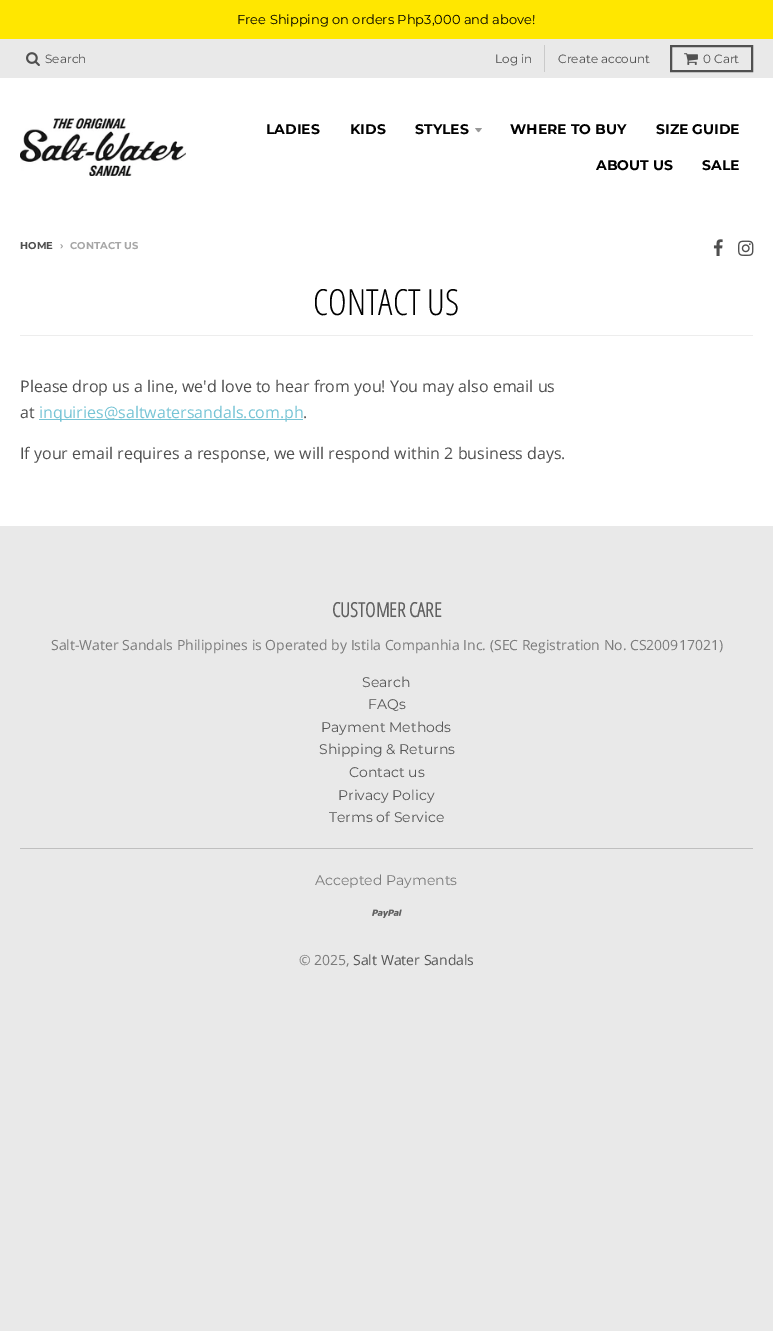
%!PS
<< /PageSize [773 1331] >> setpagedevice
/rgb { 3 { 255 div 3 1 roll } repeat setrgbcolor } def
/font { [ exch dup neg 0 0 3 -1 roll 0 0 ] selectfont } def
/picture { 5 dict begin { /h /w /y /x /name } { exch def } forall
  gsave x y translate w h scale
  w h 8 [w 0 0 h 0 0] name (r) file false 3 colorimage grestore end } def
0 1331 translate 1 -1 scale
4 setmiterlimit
233 233 233 rgb
0 0 773 1331 rectfill
255 255 255 rgb
0 78 773 448 rectfill
255 231 0 rgb
0 0 773 39 rectfill
(img/1.rgb) 26 52 14 14 picture
202 202 202 rgb
544 45 1 27 rectfill
80 80 80 rgb
2 setlinewidth
671 46 81 25 rectstroke
(img/2.rgb) 684 53 14 12 picture
(img/3.rgb) 20 118 166 58 picture
153 153 153 rgb
475 128 moveto 479.5 133.5 477.5 133.5 482 128 curveto closepath fill
(img/4.rgb) 713 239 10 17 picture
(img/5.rgb) 738 240 16 16 picture
[
  [20 335 733 1 237 237 237]
  [39 419 264 1 118 196 213]
  [20 848 733 1 191 191 191]
] { aload pop rgb rectfill } forall
(img/6.rgb) 372 909 30 9 picture
/Montserrat-Regular 13 font
0 0 0 rgb
237 24 moveto (Free Shipping on orders Php3,000 and above!) show
/Montserrat-Regular 12 font
79 79 79 rgb
[
  [(Search) 45 63]
  [(Log in) 495 63]
  [(Create account) 558 63]
  [(0 Cart) 703 63]
] { aload pop moveto show } forall
/Montserrat-Bold 14 font
0 0 0 rgb
[
  [(LADIES) 266 134]
  [(KIDS) 350 134]
  [(STYLES) 415 134]
  [(WHERE TO BUY) 510 134]
  [(SIZE GUIDE) 656 134]
  [(ABOUT US) 596 170]
  [(SALE) 702 170]
] { aload pop moveto show } forall
/Montserrat-Bold 10 font
79 79 79 rgb
20 249 moveto (HOME) show
167 167 167 rgb
60 249 moveto (›) show
70 249 moveto (CONTACT US) show
/OpenSansCondensed-Light 36 font
0 0 0 rgb
313 315 moveto (CONTACT US) show
/OpenSans-Regular 16 font
79 79 79 rgb
20 392 moveto (Please drop us a line, we'd love to hear from you! You may also email us) show
20 418 moveto (at) show
118 196 213 rgb
39 418 moveto (inquiries@saltwatersandals.com.ph) show
79 79 79 rgb
303 418 moveto (.) show
20 459 moveto (If your email requires a response, we will respond within 2 business days.) show
/OpenSansCondensed-Bold 20 font
96 96 96 rgb
332 617 moveto (CUSTOMER CARE) show
/OpenSans-Regular 14 font
123 123 123 rgb
51 650 moveto (Salt-Water Sandals Philippines is Operated by Istila Companhia Inc. \(SEC Registration No. CS200917021\)) show
/Montserrat-Regular 14 font
86 86 86 rgb
[
  [(Search) 362 687]
  [(FAQs) 368 709]
  [(Payment Methods) 321 732]
  [(Shipping & Returns) 319 754]
  [(Contact us) 349 777]
  [(Privacy Policy) 338 800]
  [(Terms of Service) 329 822]
] { aload pop moveto show } forall
123 123 123 rgb
315 885 moveto (Accepted Payments) show
/OpenSans-Regular 14 font
299 965 moveto (© 2025,) show
86 86 86 rgb
353 965 moveto (Salt Water Sandals) show
showpage
